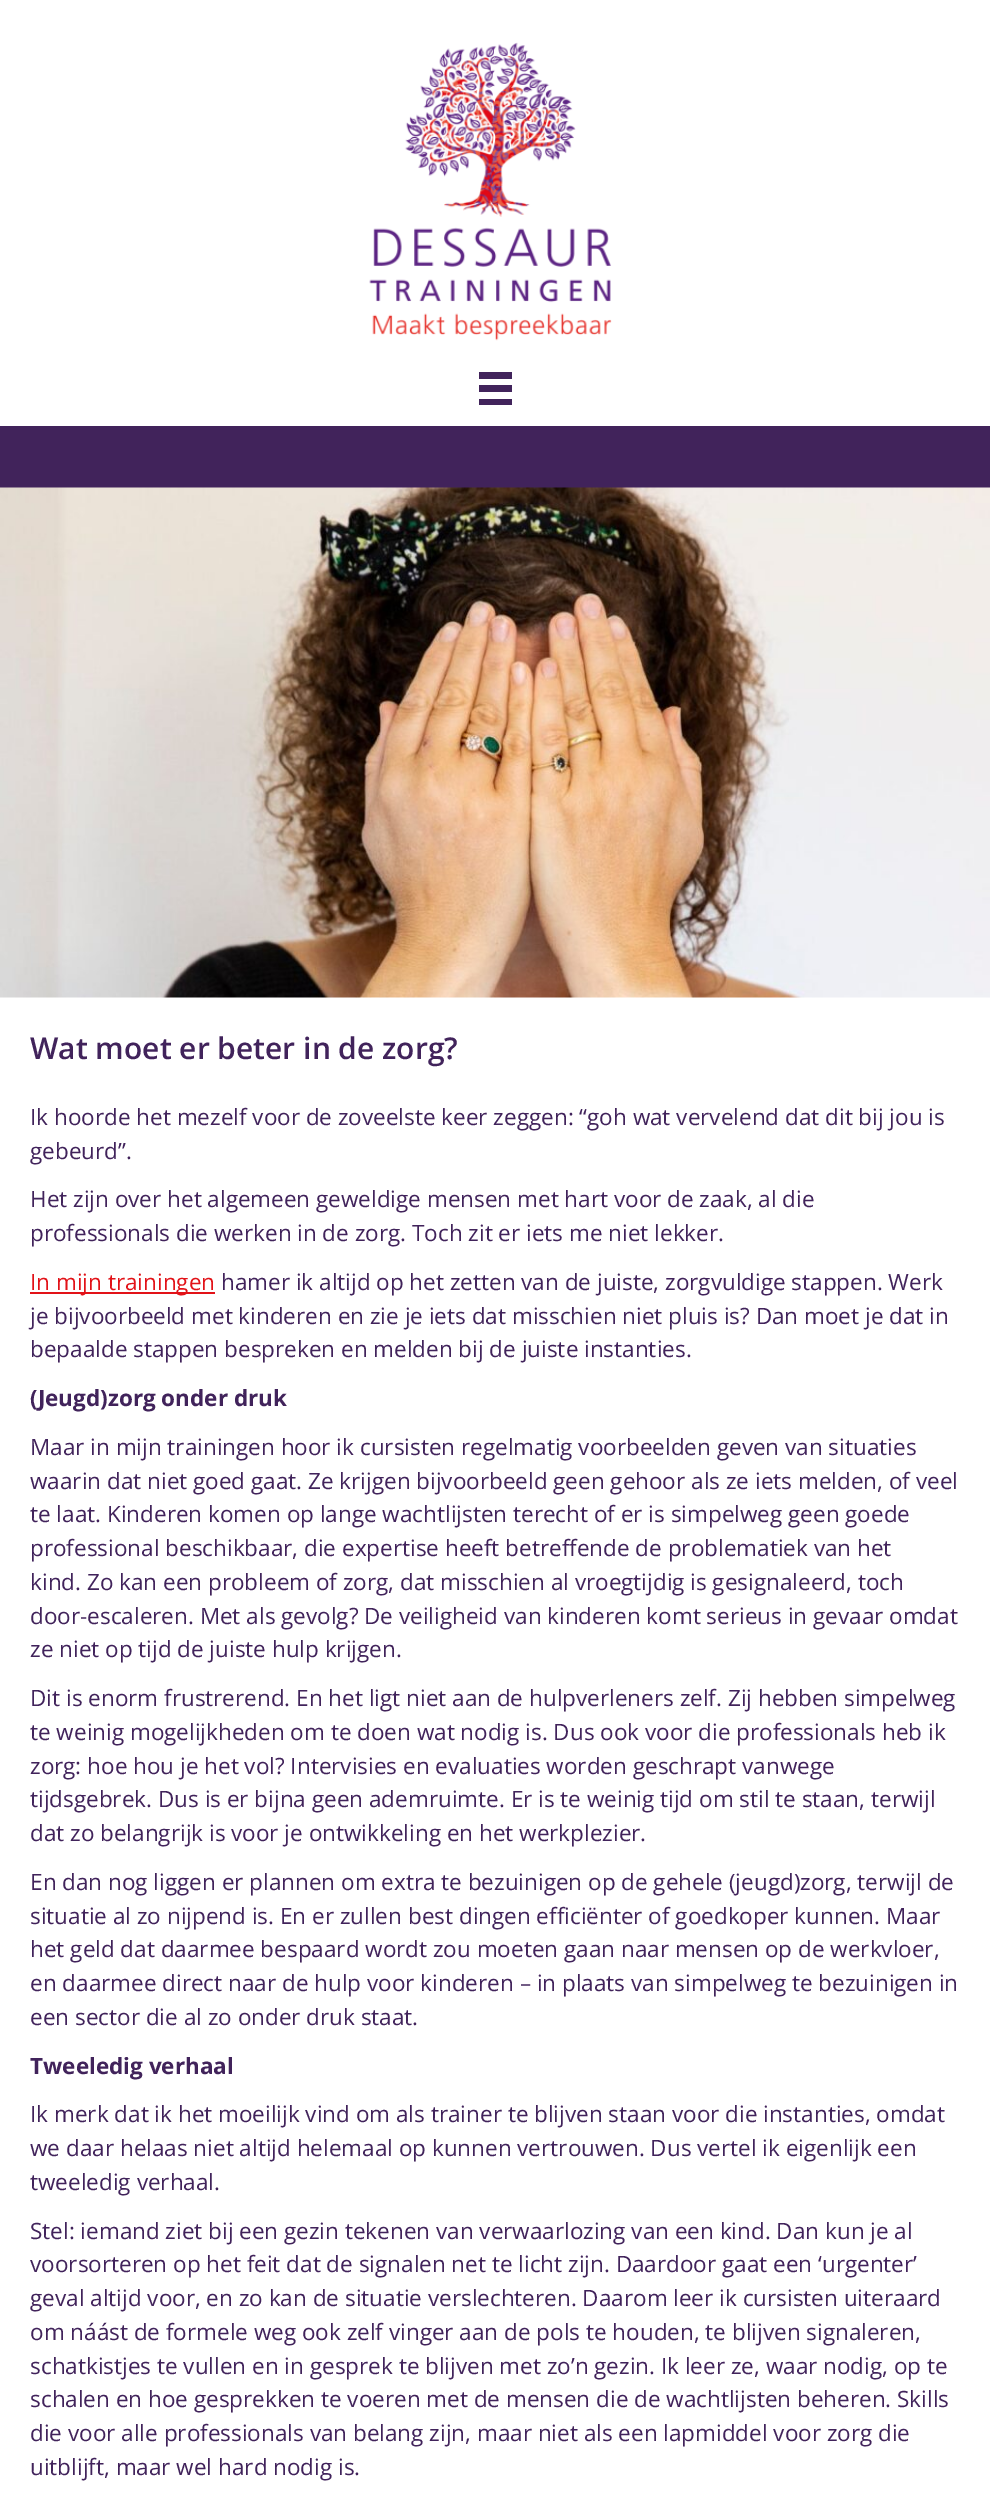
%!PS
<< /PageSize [990 2494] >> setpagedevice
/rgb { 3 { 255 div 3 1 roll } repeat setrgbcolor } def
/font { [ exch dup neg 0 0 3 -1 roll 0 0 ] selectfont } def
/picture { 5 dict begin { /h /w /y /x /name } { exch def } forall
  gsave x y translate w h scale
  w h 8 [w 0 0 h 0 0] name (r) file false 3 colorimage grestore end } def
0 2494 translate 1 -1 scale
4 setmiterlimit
255 255 255 rgb
0 0 990 2494 rectfill
(img/1.rgb) 369 42 243 299 picture
[
  [479 372 33 7 65 35 91]
  [479 385 33 7 65 35 91]
  [479 399 33 6 65 35 91]
  [0 426 990 62 65 35 91]
] { aload pop rgb rectfill } forall
(img/2.rgb) 0 487 990 511 picture
226 18 24 rgb
30 1292 185 2 rectfill
/OpenSans-SemiBold 30 font
65 35 91 rgb
30 1059 moveto (Wat moet er beter in de zorg?) show
/OpenSans-Regular 22.5 font
[
  [(Ik hoorde het mezelf voor de zoveelste keer zeggen: “goh wat vervelend dat dit bij jou is) 30 1125]
  [(gebeurd”.) 30 1159]
  [(Het zijn over het algemeen geweldige mensen met hart voor de zaak, al die) 30 1207]
  [(professionals die werken in de zorg. Toch zit er iets me niet lekker.) 30 1241]
] { aload pop moveto show } forall
226 18 24 rgb
30 1290 moveto (In mijn trainingen) show
65 35 91 rgb
[
  [(hamer ik altijd op het zetten van de juiste, zorgvuldige stappen. Werk) 221 1290]
  [(je bijvoorbeeld met kinderen en zie je iets dat misschien niet pluis is? Dan moet je dat in) 30 1324]
  [(bepaalde stappen bespreken en melden bij de juiste instanties.) 30 1357]
] { aload pop moveto show } forall
/OpenSans-Bold 22.5 font
30 1406 moveto (\(Jeugd\)zorg onder druk) show
/OpenSans-Regular 22.5 font
[
  [(Maar in mijn trainingen hoor ik cursisten regelmatig voorbeelden geven van situaties) 30 1455]
  [(waarin dat niet goed gaat. Ze krijgen bijvoorbeeld geen gehoor als ze iets melden, of veel) 30 1489]
  [(te laat. Kinderen komen op lange wachtlijsten terecht of er is simpelweg geen goede) 30 1522]
  [(professional beschikbaar, die expertise heeft betreffende de problematiek van het) 30 1556]
  [(kind. Zo kan een probleem of zorg, dat misschien al vroegtijdig is gesignaleerd, toch) 30 1590]
  [(door-escaleren. Met als gevolg? De veiligheid van kinderen komt serieus in gevaar omdat) 30 1624]
  [(ze niet op tijd de juiste hulp krijgen.) 30 1657]
  [(Dit is enorm frustrerend. En het ligt niet aan de hulpverleners zelf. Zij hebben simpelweg) 30 1706]
  [(te weinig mogelijkheden om te doen wat nodig is. Dus ook voor die professionals heb ik) 30 1740]
  [(zorg: hoe hou je het vol? Intervisies en evaluaties worden geschrapt vanwege) 30 1774]
  [(tijdsgebrek. Dus is er bijna geen ademruimte. Er is te weinig tijd om stil te staan, terwijl) 30 1807]
  [(dat zo belangrijk is voor je ontwikkeling en het werkplezier.) 30 1841]
  [(En dan nog liggen er plannen om extra te bezuinigen op de gehele \(jeugd\)zorg, terwijl de) 30 1890]
  [(situatie al zo nijpend is. En er zullen best dingen efficiënter of goedkoper kunnen. Maar) 30 1924]
  [(het geld dat daarmee bespaard wordt zou moeten gaan naar mensen op de werkvloer,) 30 1957]
  [(en daarmee direct naar de hulp voor kinderen – in plaats van simpelweg te bezuinigen in) 30 1991]
  [(een sector die al zo onder druk staat.) 30 2025]
] { aload pop moveto show } forall
/OpenSans-Bold 22.5 font
30 2074 moveto (Tweeledig verhaal) show
/OpenSans-Regular 22.5 font
[
  [(Ik merk dat ik het moeilijk vind om als trainer te blijven staan voor die instanties, omdat) 30 2122]
  [(we daar helaas niet altijd helemaal op kunnen vertrouwen. Dus vertel ik eigenlijk een) 30 2156]
  [(tweeledig verhaal.) 30 2190]
  [(Stel: iemand ziet bij een gezin tekenen van verwaarlozing van een kind. Dan kun je al) 30 2239]
  [(voorsorteren op het feit dat de signalen net te licht zijn. Daardoor gaat een ‘urgenter’) 30 2272]
  [(geval altijd voor, en zo kan de situatie verslechteren. Daarom leer ik cursisten uiteraard) 30 2306]
  [(om náást de formele weg ook zelf vinger aan de pols te houden, te blijven signaleren,) 30 2340]
  [(schatkistjes te vullen en in gesprek te blijven met zo’n gezin. Ik leer ze, waar nodig, op te) 30 2374]
  [(schalen en hoe gesprekken te voeren met de mensen die de wachtlijsten beheren. Skills) 30 2407]
  [(die voor alle professionals van belang zijn, maar niet als een lapmiddel voor zorg die) 30 2441]
  [(uitblijft, maar wel hard nodig is.) 30 2475]
] { aload pop moveto show } forall
showpage
